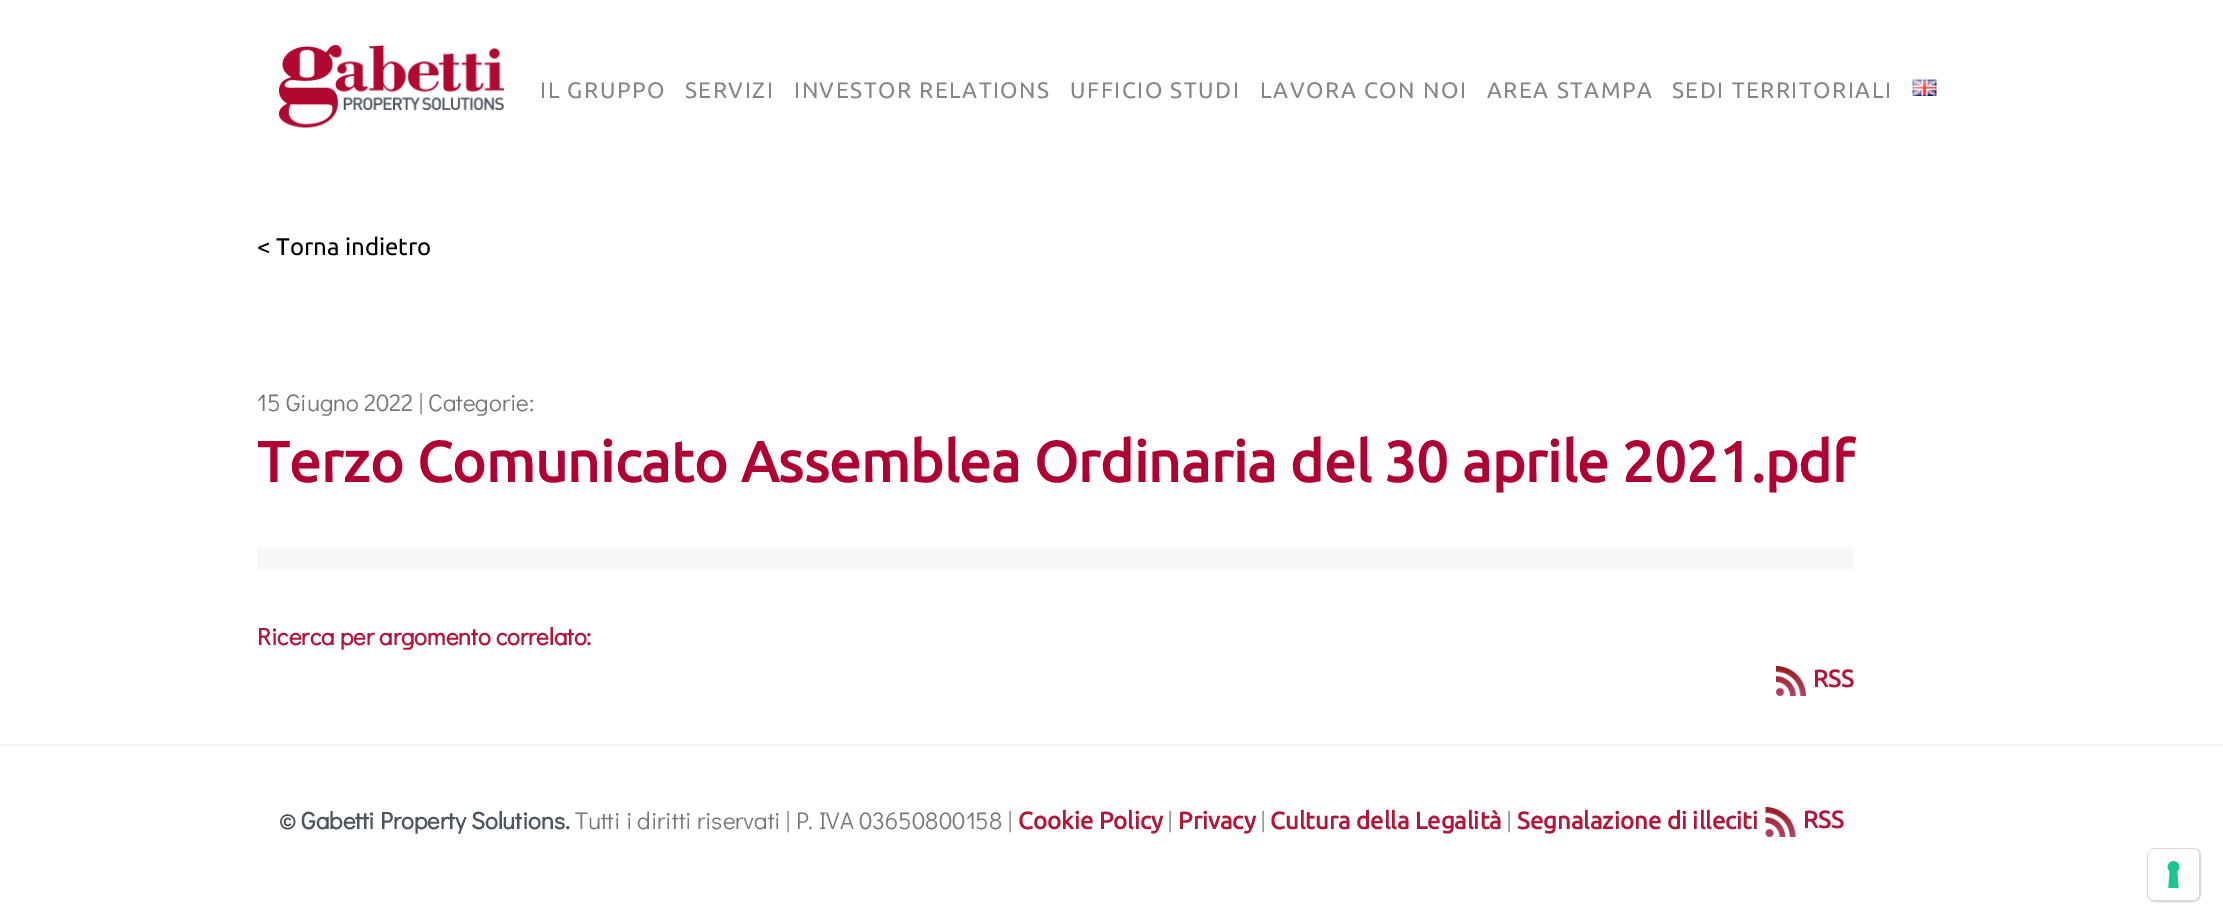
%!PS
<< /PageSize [2223 924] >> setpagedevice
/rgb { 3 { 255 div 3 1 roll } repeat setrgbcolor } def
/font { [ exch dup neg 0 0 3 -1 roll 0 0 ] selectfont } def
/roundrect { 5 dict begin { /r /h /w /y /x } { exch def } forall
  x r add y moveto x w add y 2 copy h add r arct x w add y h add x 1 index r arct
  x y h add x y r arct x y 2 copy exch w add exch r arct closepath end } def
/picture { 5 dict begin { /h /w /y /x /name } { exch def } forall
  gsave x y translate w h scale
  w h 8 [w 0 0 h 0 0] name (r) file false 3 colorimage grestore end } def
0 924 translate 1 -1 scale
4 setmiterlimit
255 255 255 rgb
0 0 2223 924 rectfill
(img/1.rgb) 279 45 225 83 picture
(img/2.rgb) 1912 79 25 17 picture
248 248 248 rgb
257 548 1597 22 rectfill
(img/3.rgb) 1776 666 30 30 picture
244 244 244 rgb
0 744 2223 2 rectfill
(img/4.rgb) 1765 807 31 30 picture
217 217 217 rgb
2 setlinewidth
2148 849 52 52 7 roundrect stroke
255 255 255 rgb
2148 849 51 51 6 roundrect fill
(img/5.rgb) 2167 861 13 27 picture
/Ubuntu-Regular 22.5 font
134 134 134 rgb
540 98 moveto 1.5 0 (IL GRUPPO) ashow
685 98 moveto 1.5 0 (SERVIZI) ashow
794 98 moveto 1.5 0 (INVESTOR RELATIONS) ashow
1070 98 moveto 1.5 0 (UFFICIO STUDI) ashow
1260 98 moveto 1.5 0 (LAVORA CON NOI) ashow
1487 98 moveto 1.5 0 (AREA STAMPA) ashow
1672 98 moveto 1.5 0 (SEDI TERRITORIALI) ashow
/Ubuntu-Regular 24 font
0 0 0 rgb
257 255 moveto (< Torna indietro) show
/DidactGothic-Regular 24 font
119 119 119 rgb
257 411 moveto (15 Giugno 2022 | Categorie:) show
/Ubuntu-Bold 57 font
176 1 52 rgb
257 482 moveto (Terzo Comunicato Assemblea Ordinaria del 30 aprile 2021.pdf) show
/DidactGothic-Bold 24 font
176 23 56 rgb
257 645 moveto (Ricerca per argomento correlato:) show
/Ubuntu-Bold 24 font
1813 687 moveto (RSS) show
/DidactGothic-Bold 24 font
76 86 95 rgb
279 829 moveto (© Gabetti Property Solutions.) show
/DidactGothic-Regular 24 font
119 119 119 rgb
575 829 moveto (Tutti i diritti riservati | P. IVA 03650800158 |) show
/Ubuntu-Bold 24 font
176 23 56 rgb
1018 829 moveto (Cookie Policy) show
/DidactGothic-Regular 24 font
119 119 119 rgb
1168 829 moveto (|) show
/Ubuntu-Bold 24 font
176 23 56 rgb
1178 829 moveto (Privacy) show
/DidactGothic-Regular 24 font
119 119 119 rgb
1261 829 moveto (|) show
/Ubuntu-Bold 24 font
176 23 56 rgb
1270 829 moveto (Cultura della Legalità) show
/DidactGothic-Regular 24 font
119 119 119 rgb
1507 829 moveto (|) show
/Ubuntu-Bold 24 font
176 23 56 rgb
1517 829 moveto (Segnalazione di illeciti) show
1803 828 moveto (RSS) show
showpage
